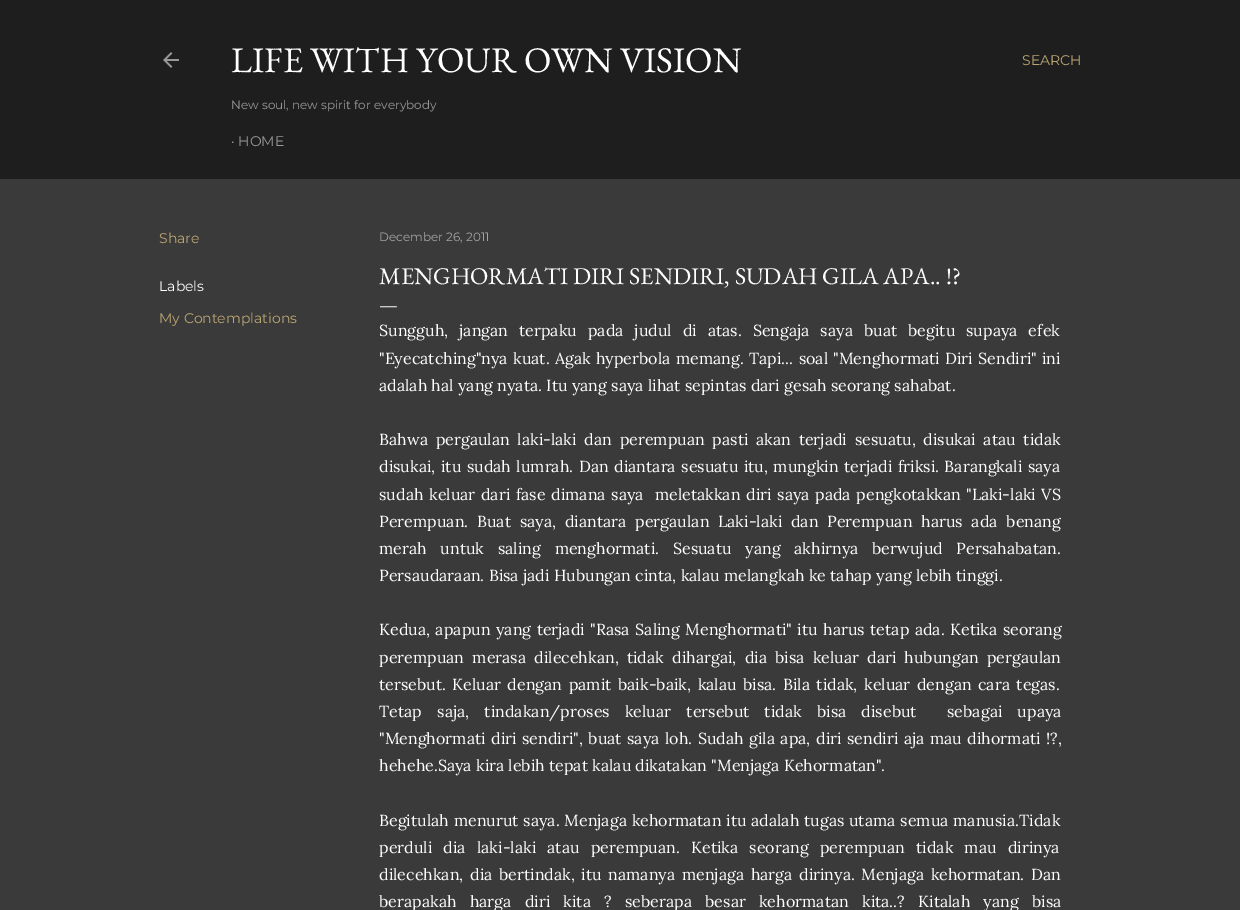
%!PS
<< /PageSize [1240 910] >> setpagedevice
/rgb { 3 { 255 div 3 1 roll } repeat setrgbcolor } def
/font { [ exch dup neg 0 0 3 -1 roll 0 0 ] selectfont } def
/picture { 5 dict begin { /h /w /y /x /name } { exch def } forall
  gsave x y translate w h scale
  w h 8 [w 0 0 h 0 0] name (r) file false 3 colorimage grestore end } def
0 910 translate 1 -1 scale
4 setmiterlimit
58 58 58 rgb
0 0 1240 910 rectfill
30 30 30 rgb
0 0 1240 179 rectfill
(img/1.rgb) 163 52 16 16 picture
/EBGaramond-Regular 36 font
255 255 255 rgb
231 72 moveto (LIFE WITH YOUR OWN VISION) show
/Montserrat-Regular 12 font
152 152 152 rgb
231 109 moveto (New soul, new spirit for everybody) show
/Montserrat-Regular 14 font
231 146 moveto (· HOME) show
188 167 114 rgb
1022 65 moveto (SEARCH) show
159 243 moveto (Share) show
255 255 255 rgb
159 291 moveto (Labels) show
188 167 114 rgb
159 323 moveto (My Contemplations) show
/Montserrat-Regular 12 font
164 164 164 rgb
379 241 moveto (December 26, 2011) show
/EBGaramond-Regular 24 font
255 255 255 rgb
379 284 moveto (MENGHORMATI DIRI SENDIRI, SUDAH GILA APA.. !?) show
/EBGaramond-Regular 20 font
379 311 moveto (—) show
/Lora-Regular 16 font
379 336 moveto 6.75 0 32 (Sungguh, jangan terpaku pada judul di atas. Sengaja saya buat begitu supaya efek) widthshow
379 364 moveto 1.1 0 32 ("Eyecatching"nya kuat. Agak hyperbola memang. Tapi... soal "Menghormati Diri Sendiri" ini) widthshow
379 391 moveto (adalah hal yang nyata. Itu yang saya lihat sepintas dari gesah seorang sahabat.) show
379 445 moveto 3.5 0 32 (Bahwa pergaulan laki-laki dan perempuan pasti akan terjadi sesuatu, disukai atau tidak) widthshow
379 472 moveto 1.25 0 32 (disukai, itu sudah lumrah. Dan diantara sesuatu itu, mungkin terjadi friksi. Barangkali saya) widthshow
379 500 moveto 1.4 0 32 (sudah keluar dari fase dimana saya  meletakkan diri saya pada pengkotakkan "Laki-laki VS) widthshow
379 527 moveto 4.5 0 32 (Perempuan. Buat saya, diantara pergaulan Laki-laki dan Perempuan harus ada benang) widthshow
379 554 moveto 9.5 0 32 (merah untuk saling menghormati. Sesuatu yang akhirnya berwujud Persahabatan.) widthshow
379 581 moveto (Persaudaraan. Bisa jadi Hubungan cinta, kalau melangkah ke tahap yang lebih tinggi.) show
379 635 moveto 1.25 0 32 (Kedua, apapun yang terjadi "Rasa Saling Menghormati" itu harus tetap ada. Ketika seorang) widthshow
379 663 moveto 3.9 0 32 (perempuan merasa dilecehkan, tidak dihargai, dia bisa keluar dari hubungan pergaulan) widthshow
379 690 moveto 2.25 0 32 (tersebut. Keluar dengan pamit baik-baik, kalau bisa. Bila tidak, keluar dengan cara tegas.) widthshow
379 717 moveto 11 0 32 (Tetap saja, tindakan/proses keluar tersebut tidak bisa disebut  sebagai upaya) widthshow
379 744 moveto 1.25 0 32 ("Menghormati diri sendiri", buat saya loh. Sudah gila apa, diri sendiri aja mau dihormati !?,) widthshow
379 771 moveto (hehehe.Saya kira lebih tepat kalau dikatakan "Menjaga Kehormatan".) show
379 826 moveto 0.5 0 32 (Begitulah menurut saya. Menjaga kehormatan itu adalah tugas utama semua manusia.Tidak) widthshow
379 853 moveto 7 0 32 (perduli dia laki-laki atau perempuan. Ketika seorang perempuan tidak mau dirinya) widthshow
379 880 moveto 2.4 0 32 (dilecehkan, dia bertindak, itu namanya menjaga harga dirinya. Menjaga kehormatan. Dan) widthshow
379 907 moveto 9 0 32 (berapakah harga diri kita ? seberapa besar kehormatan kita..? Kitalah yang bisa) widthshow
showpage
